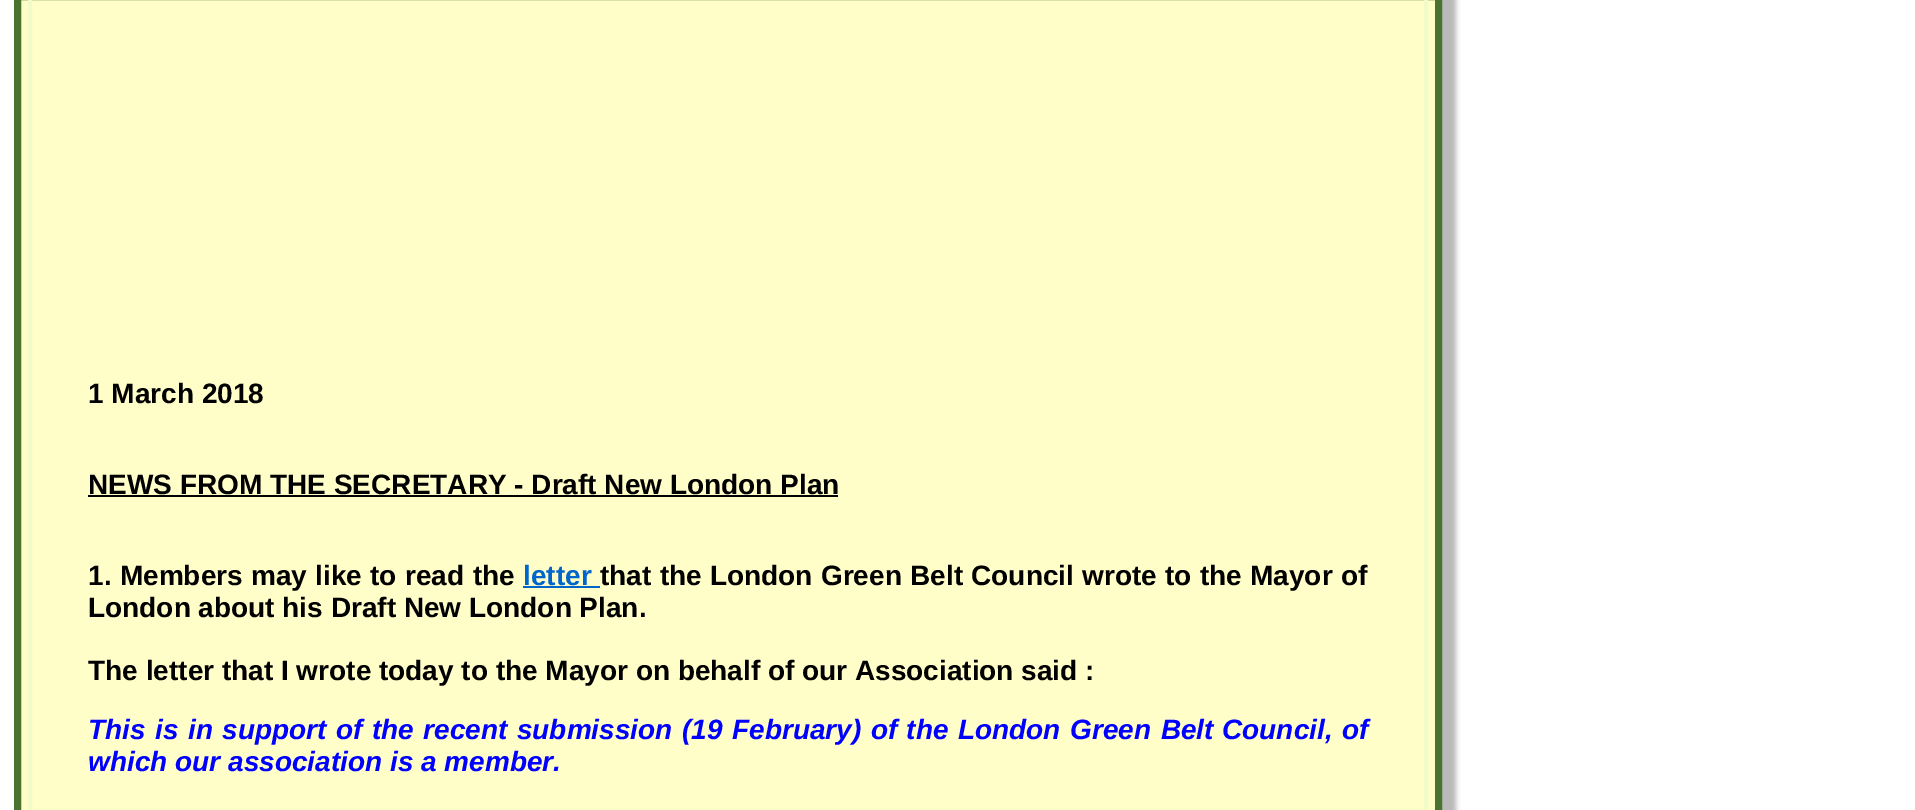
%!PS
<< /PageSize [1915 810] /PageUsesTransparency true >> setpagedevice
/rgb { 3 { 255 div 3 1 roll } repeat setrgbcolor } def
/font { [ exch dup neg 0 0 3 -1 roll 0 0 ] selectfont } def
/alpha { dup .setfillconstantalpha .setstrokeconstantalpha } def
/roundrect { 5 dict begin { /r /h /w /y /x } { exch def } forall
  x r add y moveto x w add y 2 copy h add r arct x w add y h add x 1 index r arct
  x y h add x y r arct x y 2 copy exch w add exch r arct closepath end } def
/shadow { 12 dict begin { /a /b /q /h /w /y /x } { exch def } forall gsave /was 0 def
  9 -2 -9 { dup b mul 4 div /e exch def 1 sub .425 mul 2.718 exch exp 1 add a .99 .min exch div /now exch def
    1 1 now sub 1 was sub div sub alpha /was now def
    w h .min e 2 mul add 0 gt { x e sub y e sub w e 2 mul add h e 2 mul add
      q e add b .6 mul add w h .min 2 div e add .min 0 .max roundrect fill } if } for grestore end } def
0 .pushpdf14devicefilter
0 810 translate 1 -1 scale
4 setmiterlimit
255 255 255 rgb
0 0 1915 810 rectfill
80 80 80 rgb
28 -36 1428 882 28 2.5 0.4 shadow
255 253 200 rgb
17.5 -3.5 moveto 1438.5 -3.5 lineto 1438.5 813.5 lineto 17.5 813.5 lineto closepath gsave fill grestore
74 115 49 rgb
7 setlinewidth
stroke
242 250 199 rgb
4 setlinewidth
30 -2 1396 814 rectstroke
0 0 0 rgb
88 495 750 2 rectfill
0 102 204 rgb
523 586 77 2 rectfill
/LiberationSans-Bold 28 font
0 0 0 rgb
88 403 moveto (1 March 2018) show
88 494 moveto (NEWS FROM THE SECRETARY - Draft New London Plan) show
88 585 moveto 0.5 0 32 (1. Members may like to) widthshow
405 585 moveto 1 0 32 (read the) widthshow
0 102 204 rgb
523 585 moveto (letter) show
0 0 0 rgb
600 585 moveto 0.5 0 32 (that the London Green) widthshow
910 585 moveto 0.5 0 32 (Belt Council wrote to the Mayor of) widthshow
88 617 moveto (London about his Draft New London Plan.) show
88 680 moveto (The letter that I wrote today to the Mayor on behalf of our Association said :) show
/LiberationSans-BoldItalic 28 font
0 0 255 rgb
88 739 moveto 1.75 0 32 (This is in) widthshow
222 739 moveto 1.75 0 32 (support of the recent submission \(19 February\) of the London Green Belt) widthshow
1222 739 moveto 1.75 0 32 (Council, of) widthshow
88 771 moveto (which our association is a member.) show
.poppdf14devicefilter showpage
